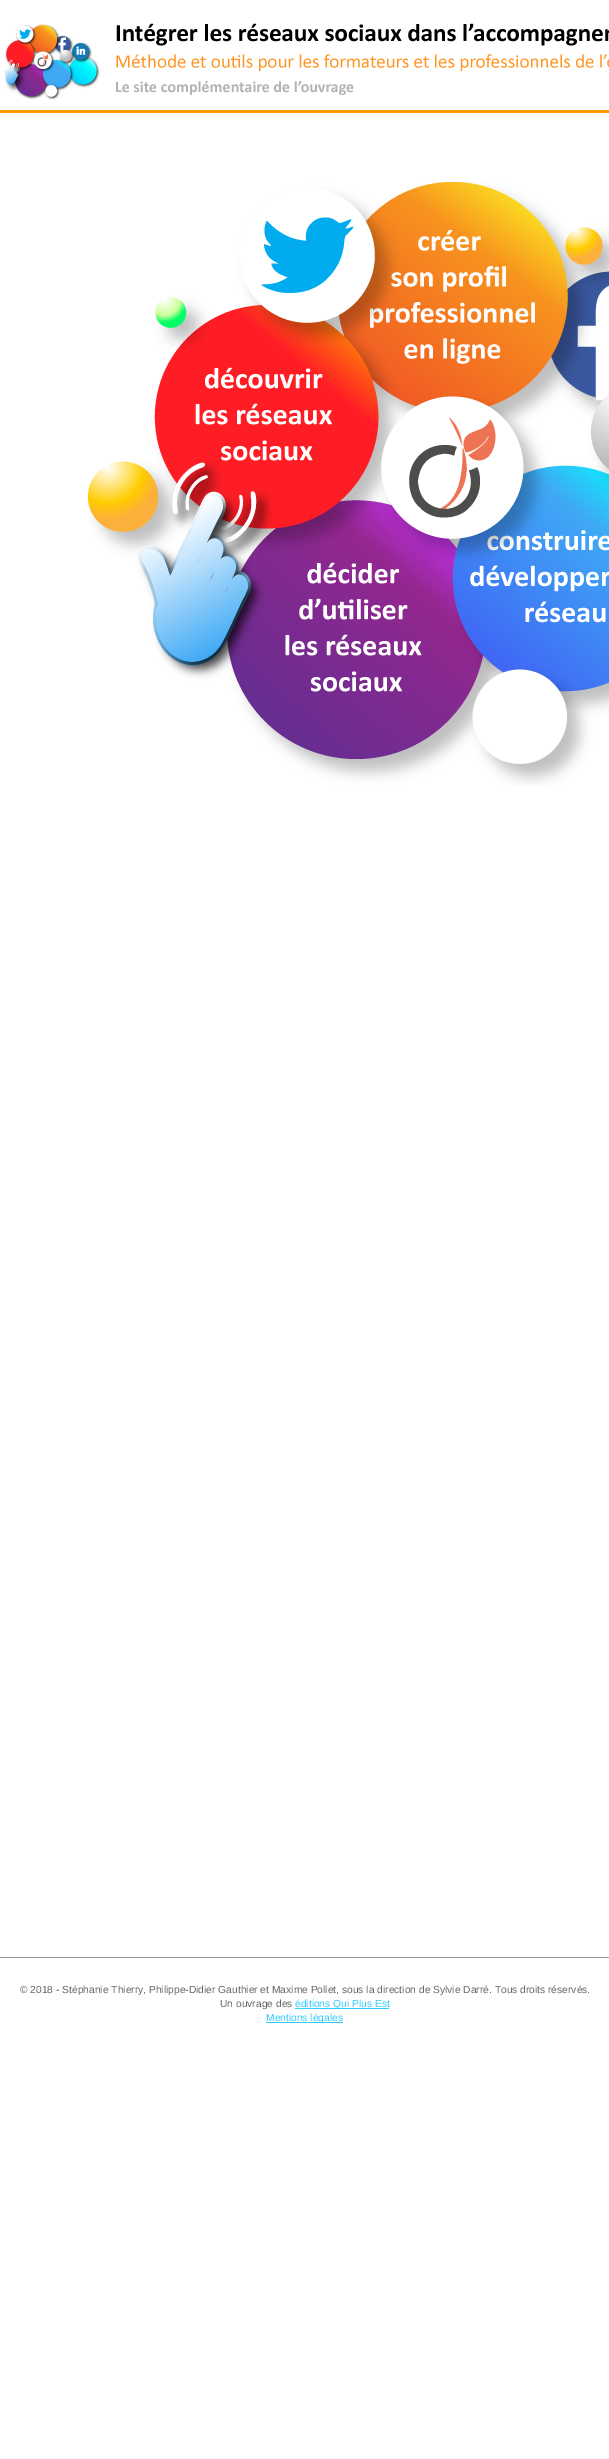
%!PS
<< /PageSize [609 2459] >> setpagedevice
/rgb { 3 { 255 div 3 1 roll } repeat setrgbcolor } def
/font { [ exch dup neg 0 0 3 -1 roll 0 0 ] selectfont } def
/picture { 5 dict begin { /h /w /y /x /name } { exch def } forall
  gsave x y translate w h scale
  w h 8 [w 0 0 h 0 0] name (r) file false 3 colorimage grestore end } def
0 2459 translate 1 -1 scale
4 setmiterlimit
255 255 255 rgb
0 0 609 2459 rectfill
(img/1.rgb) 116 23 493 72 picture
255 153 0 rgb
0 110 609 3 rectfill
(img/2.rgb) 4 24 96 76 picture
(img/3.rgb) 88 182 521 604 picture
[
  [0 1957 609 1 153 153 153]
  [295 2008 94 1 51 204 255]
  [266 2022 77 1 51 204 255]
] { aload pop rgb rectfill } forall
/LiberationSans-Regular 10.25 font
102 102 102 rgb
20 1993 moveto (© 2018 - Stéphanie Thierry, Philippe-Didier Gauthier et Maxime Pollet, sous la direction de Sylvie Darré. Tous droits réservés.) show
220 2007 moveto (Un ouvrage des) show
51 204 255 rgb
295 2007 moveto (éditions Qui Plus Est) show
266 2021 moveto (Mentions légales) show
showpage
